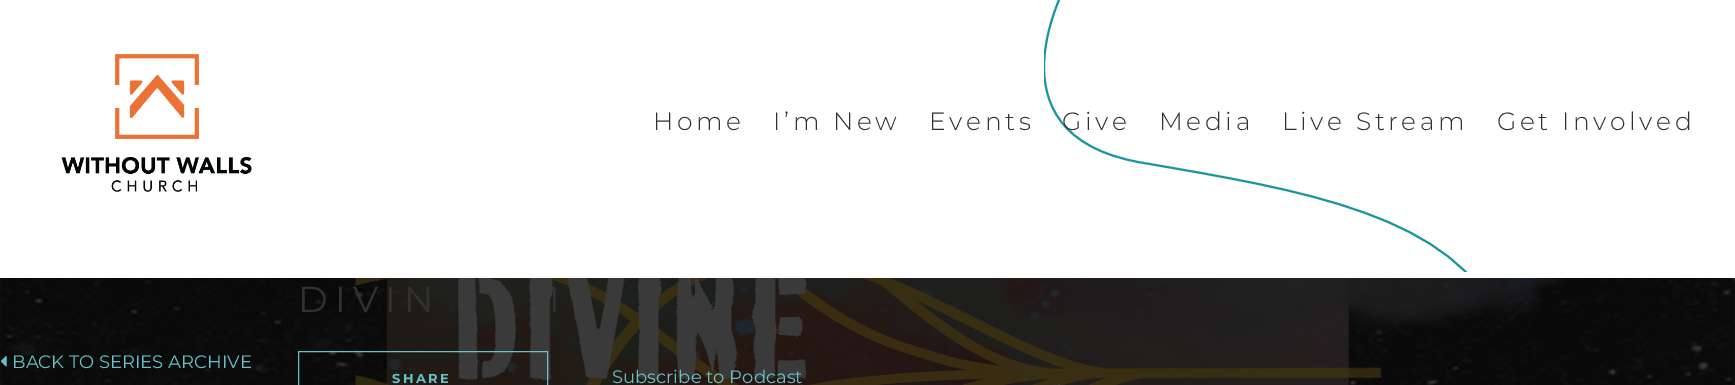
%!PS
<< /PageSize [1735 385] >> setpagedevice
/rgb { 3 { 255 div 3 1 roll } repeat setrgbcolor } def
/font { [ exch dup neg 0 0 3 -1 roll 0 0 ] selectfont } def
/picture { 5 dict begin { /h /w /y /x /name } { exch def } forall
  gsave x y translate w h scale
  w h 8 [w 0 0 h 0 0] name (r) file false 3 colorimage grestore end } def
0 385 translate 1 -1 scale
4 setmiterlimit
255 255 255 rgb
0 0 1735 385 rectfill
gsave
1044 0 691 272 rectclip
26 151 158 rgb
2 setlinewidth
1069 -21 moveto 1069 -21 979 134.5 1141 162.5 curveto 1302.5 190.5 1455 214 1502 325 curveto 1548.5 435.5 1501 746 1732 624 curveto 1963.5 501.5 1732 -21 1732 -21 curveto closepath stroke
grestore
(img/1.rgb) 61 54 191 138 picture
(img/2.rgb) 0 278 1735 107 picture
(img/3.rgb) 0 356 7 11 picture
103 193 198 rgb
298.5 351.5 249 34 rectstroke
/Montserrat-Light 25 font
49 49 49 rgb
653 130 moveto 3.6 0 (Home) ashow
773 130 moveto 3.6 0 (I’m New) ashow
929 130 moveto 3.6 0 (Events) ashow
1062 130 moveto 3.6 0 (Give) ashow
1159 130 moveto 3.6 0 (Media) ashow
1282 130 moveto 3.6 0 (Live Stream) ashow
1497 130 moveto 3.6 0 (Get Involved) ashow
/Montserrat-Regular 18 font
103 193 198 rgb
12 368 moveto (BACK TO SERIES ARCHIVE) show
/Montserrat-Regular 36 font
49 49 49 rgb
298 312 moveto 7.25 0 (DIVIN) ashow
549 312 moveto 7.25 0 (I) ashow
/Montserrat-Bold 13 font
103 193 198 rgb
392 383 moveto 2.5 0 (SHARE) ashow
/Montserrat-Regular 18 font
612 383 moveto (Subscribe to Podcast) show
showpage
